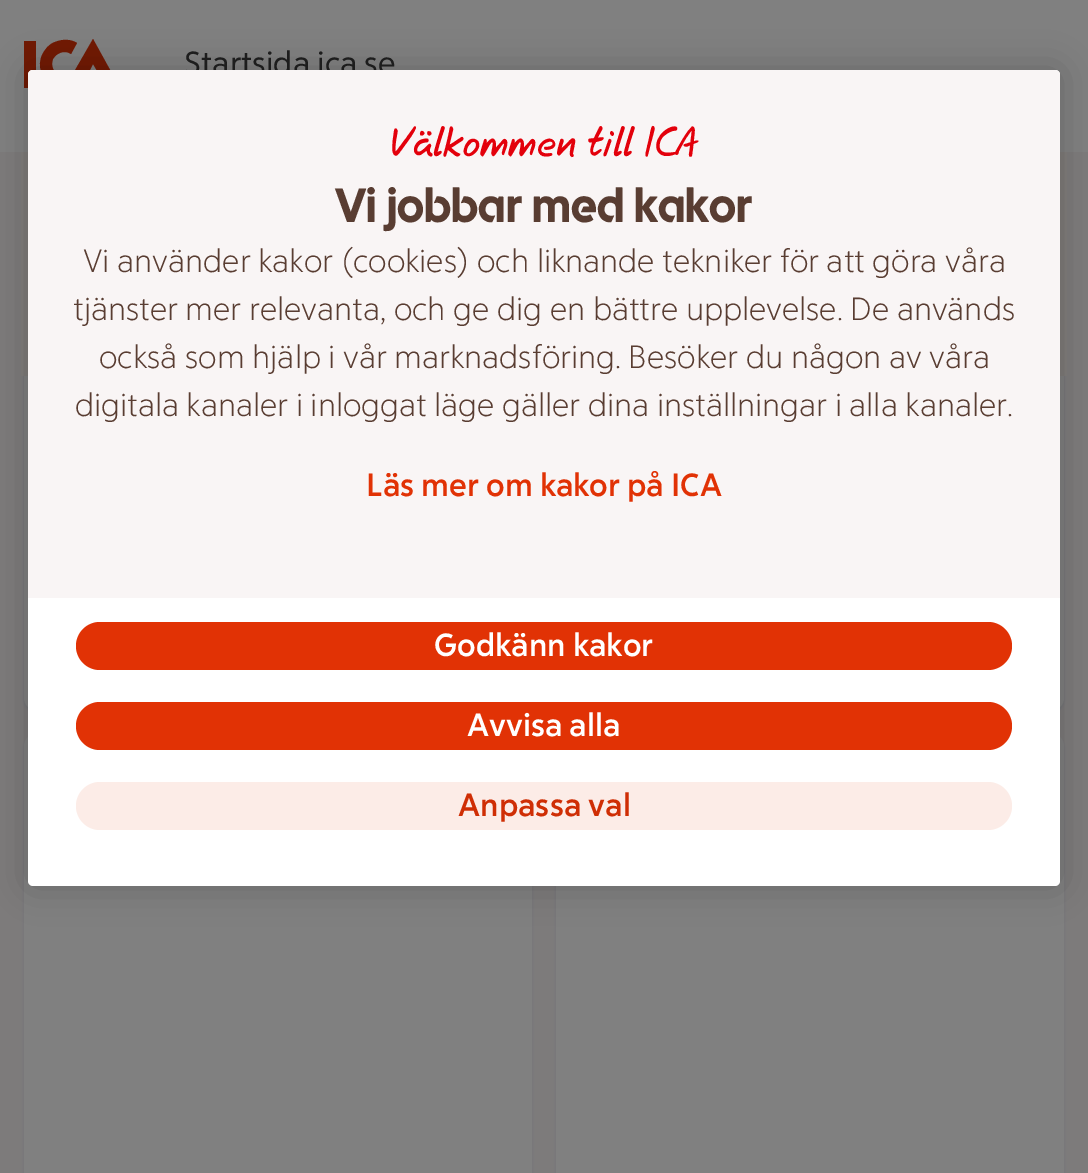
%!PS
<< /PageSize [1088 1173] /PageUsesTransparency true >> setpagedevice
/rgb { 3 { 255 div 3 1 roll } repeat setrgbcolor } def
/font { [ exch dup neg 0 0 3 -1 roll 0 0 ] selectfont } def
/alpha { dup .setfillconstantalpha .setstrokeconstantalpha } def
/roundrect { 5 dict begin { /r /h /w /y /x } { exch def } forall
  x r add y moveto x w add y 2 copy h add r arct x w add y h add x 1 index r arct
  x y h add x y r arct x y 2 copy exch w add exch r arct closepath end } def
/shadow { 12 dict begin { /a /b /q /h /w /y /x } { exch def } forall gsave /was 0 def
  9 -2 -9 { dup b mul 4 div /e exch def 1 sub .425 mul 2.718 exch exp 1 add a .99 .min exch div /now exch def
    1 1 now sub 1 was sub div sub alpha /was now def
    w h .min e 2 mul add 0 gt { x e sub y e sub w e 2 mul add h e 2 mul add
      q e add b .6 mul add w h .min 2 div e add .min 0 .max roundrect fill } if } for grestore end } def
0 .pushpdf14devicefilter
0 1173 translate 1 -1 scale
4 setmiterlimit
125 123 123 rgb
0 0 1088 1173 rectfill
113 116 120 rgb
24 -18 508 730 12 2 1 shadow
128 128 128 rgb
24 -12 508 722 12 roundrect fill
113 116 120 rgb
556 -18 508 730 12 2 1 shadow
128 128 128 rgb
556 -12 508 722 12 roundrect fill
113 116 120 rgb
24 736 508 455 12 2 1 shadow
128 128 128 rgb
24 734 508 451 12 roundrect fill
113 116 120 rgb
556 736 508 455 12 2 1 shadow
128 128 128 rgb
556 734 508 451 12 roundrect fill
0 0 1088 152 rectfill
113 25 3 rgb
24 41 moveto 36 41 lineto 36 88 lineto 24 88 lineto 24 41 lineto 93 39 moveto 120 88 lineto 106 88 lineto 103 83 lineto 90 83 lineto 95 74 lineto 99 74 lineto 93 64 lineto 90 70 86 78 81 83 curveto 61 99 32 78 42 55 curveto 45 49 49 44 55 42 curveto 62 39 71 39 77 43 curveto 71 54 lineto 68 52 64 51 60 53 curveto 57 54 55 56 53 59 curveto 48 73 65 83 74 72 curveto 93 39 lineto fill
127 124 122 rgb
21 152 1046 224 rectfill
0 0 0 rgb
28 70 1032 816 5 18 0.2 shadow
/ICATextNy-Regular 32 font
29 29 29 rgb
184 74 moveto (Startsida ica.se) show
255 255 255 rgb
28 70 1032 816 5 roundrect fill
249 245 245 rgb
33 70 moveto 1055 70 lineto 1058 70 1060 72 1060 75 curveto 1060 598 lineto 28 598 lineto 28 75 lineto 28 72 30 70 33 70 curveto closepath fill
/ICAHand-Italic 40 font
227 0 11 rgb
389 156 moveto (Välkommen till ICA) show
/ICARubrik-Bold 48 font
89 61 50 rgb
335 222 moveto (Vi jobbar med kakor) show
/ICATextNy-Light 32 font
[
  [(Vi använder kakor \(cookies\) och liknande tekniker för att göra våra) 83 272]
  [(tjänster mer relevanta, och ge dig en bättre upplevelse. De används) 73 320]
  [(också som hjälp i vår marknadsföring. Besöker du någon av våra) 99 368]
  [(digitala kanaler i inloggat läge gäller dina inställningar i alla kanaler.) 75 416]
] { aload pop moveto show } forall
/ICATextNy-Bold 32 font
225 50 5 rgb
366 496 moveto (Läs mer om kakor på ICA) show
76 622 936 48 24 roundrect fill
255 255 255 rgb
434 656 moveto (Godkänn kakor) show
225 50 5 rgb
76 702 936 48 24 roundrect fill
255 255 255 rgb
467 736 moveto (Avvisa alla) show
252 236 231 rgb
76 782 936 48 24 roundrect fill
207 46 5 rgb
458 816 moveto (Anpassa val) show
.poppdf14devicefilter showpage
